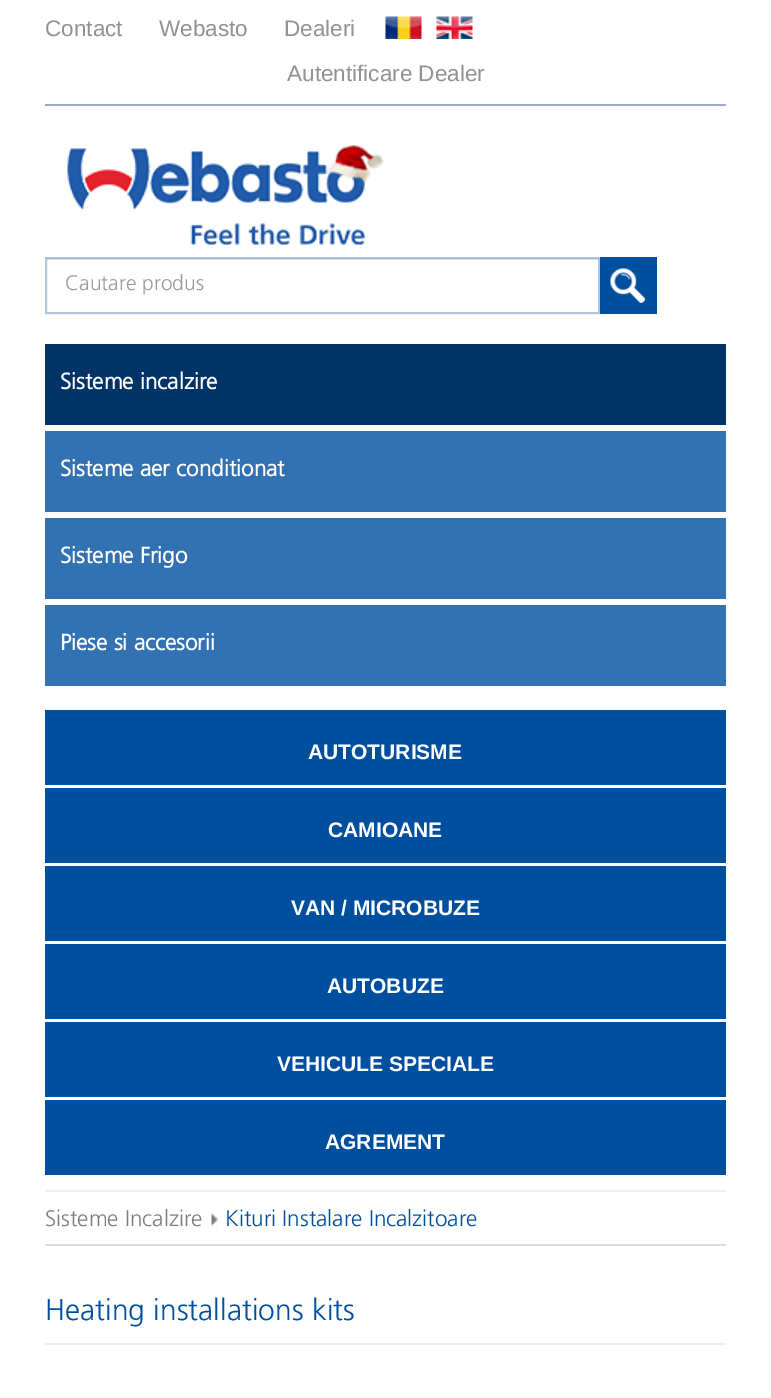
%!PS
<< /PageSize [771 1398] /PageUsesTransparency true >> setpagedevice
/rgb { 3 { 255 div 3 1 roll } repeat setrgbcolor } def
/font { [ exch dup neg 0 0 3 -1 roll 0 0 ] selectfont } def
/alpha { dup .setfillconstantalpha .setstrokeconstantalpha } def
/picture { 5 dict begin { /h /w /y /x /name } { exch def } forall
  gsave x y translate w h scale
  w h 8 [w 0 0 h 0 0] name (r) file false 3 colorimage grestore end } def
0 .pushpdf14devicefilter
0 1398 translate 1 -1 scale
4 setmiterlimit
255 255 255 rgb
0 0 771 1398 rectfill
(img/1.rgb) 385 16 37 23 picture
(img/2.rgb) 436 16 37 23 picture
153 170 204 rgb
45 104 681 2 rectfill
(img/3.rgb) 67 145 317 100 picture
236 236 236 rgb
47 258 552 2 rectfill
0.4 alpha
51 114 178 rgb
2 setlinewidth
46 258 553 55 rectstroke
1 alpha
0 79 159 rgb
600 257 57 57 rectfill
(img/4.rgb) 610 268 35 35 picture
[
  [45 344 681 81 1 51 103]
  [45 431 681 81 51 114 178]
  [45 518 681 81 51 114 178]
  [45 605 681 81 51 114 178]
  [45 710 681 75 0 79 159]
  [45 788 681 75 0 79 159]
  [45 866 681 75 0 79 159]
  [45 944 681 75 0 79 159]
  [45 1022 681 75 0 79 159]
  [45 1100 681 75 0 79 159]
  [45 1190 681 2 238 238 238]
  [45 1244 681 2 224 221 221]
] { aload pop rgb rectfill } forall
(img/5.rgb) 211 1213 7 17 picture
238 238 238 rgb
45 1343 681 2 rectfill
/LiberationSans-Regular 22.5 font
146 146 146 rgb
[
  [(Contact) 45 36]
  [(Webasto) 159 36]
  [(Dealeri) 284 36]
  [(Autentificare Dealer) 287 81]
] { aload pop moveto show } forall
/Frutiger-Light 21 font
153 153 153 rgb
65 290 moveto (Cautare produs) show
/Frutiger-Bold 22.5 font
255 255 255 rgb
[
  [(Sisteme incalzire) 60 389]
  [(Sisteme aer conditionat) 60 476]
  [(Sisteme Frigo) 60 563]
  [(Piese si accesorii) 60 650]
] { aload pop moveto show } forall
/LiberationSans-Bold 21 font
[
  [(AUTOTURISME) 308 759]
  [(CAMIOANE) 328 837]
  [(VAN / MICROBUZE) 291 915]
  [(AUTOBUZE) 327 993]
  [(VEHICULE SPECIALE) 277 1071]
  [(AGREMENT) 325 1149]
] { aload pop moveto show } forall
/Frutiger-Light 22.5 font
123 123 123 rgb
45 1226 moveto (Sisteme Incalzire) show
0 79 159 rgb
225 1226 moveto (Kituri Instalare Incalzitoare) show
/Frutiger-Light 30 font
45 1320 moveto (Heating installations kits) show
.poppdf14devicefilter showpage
